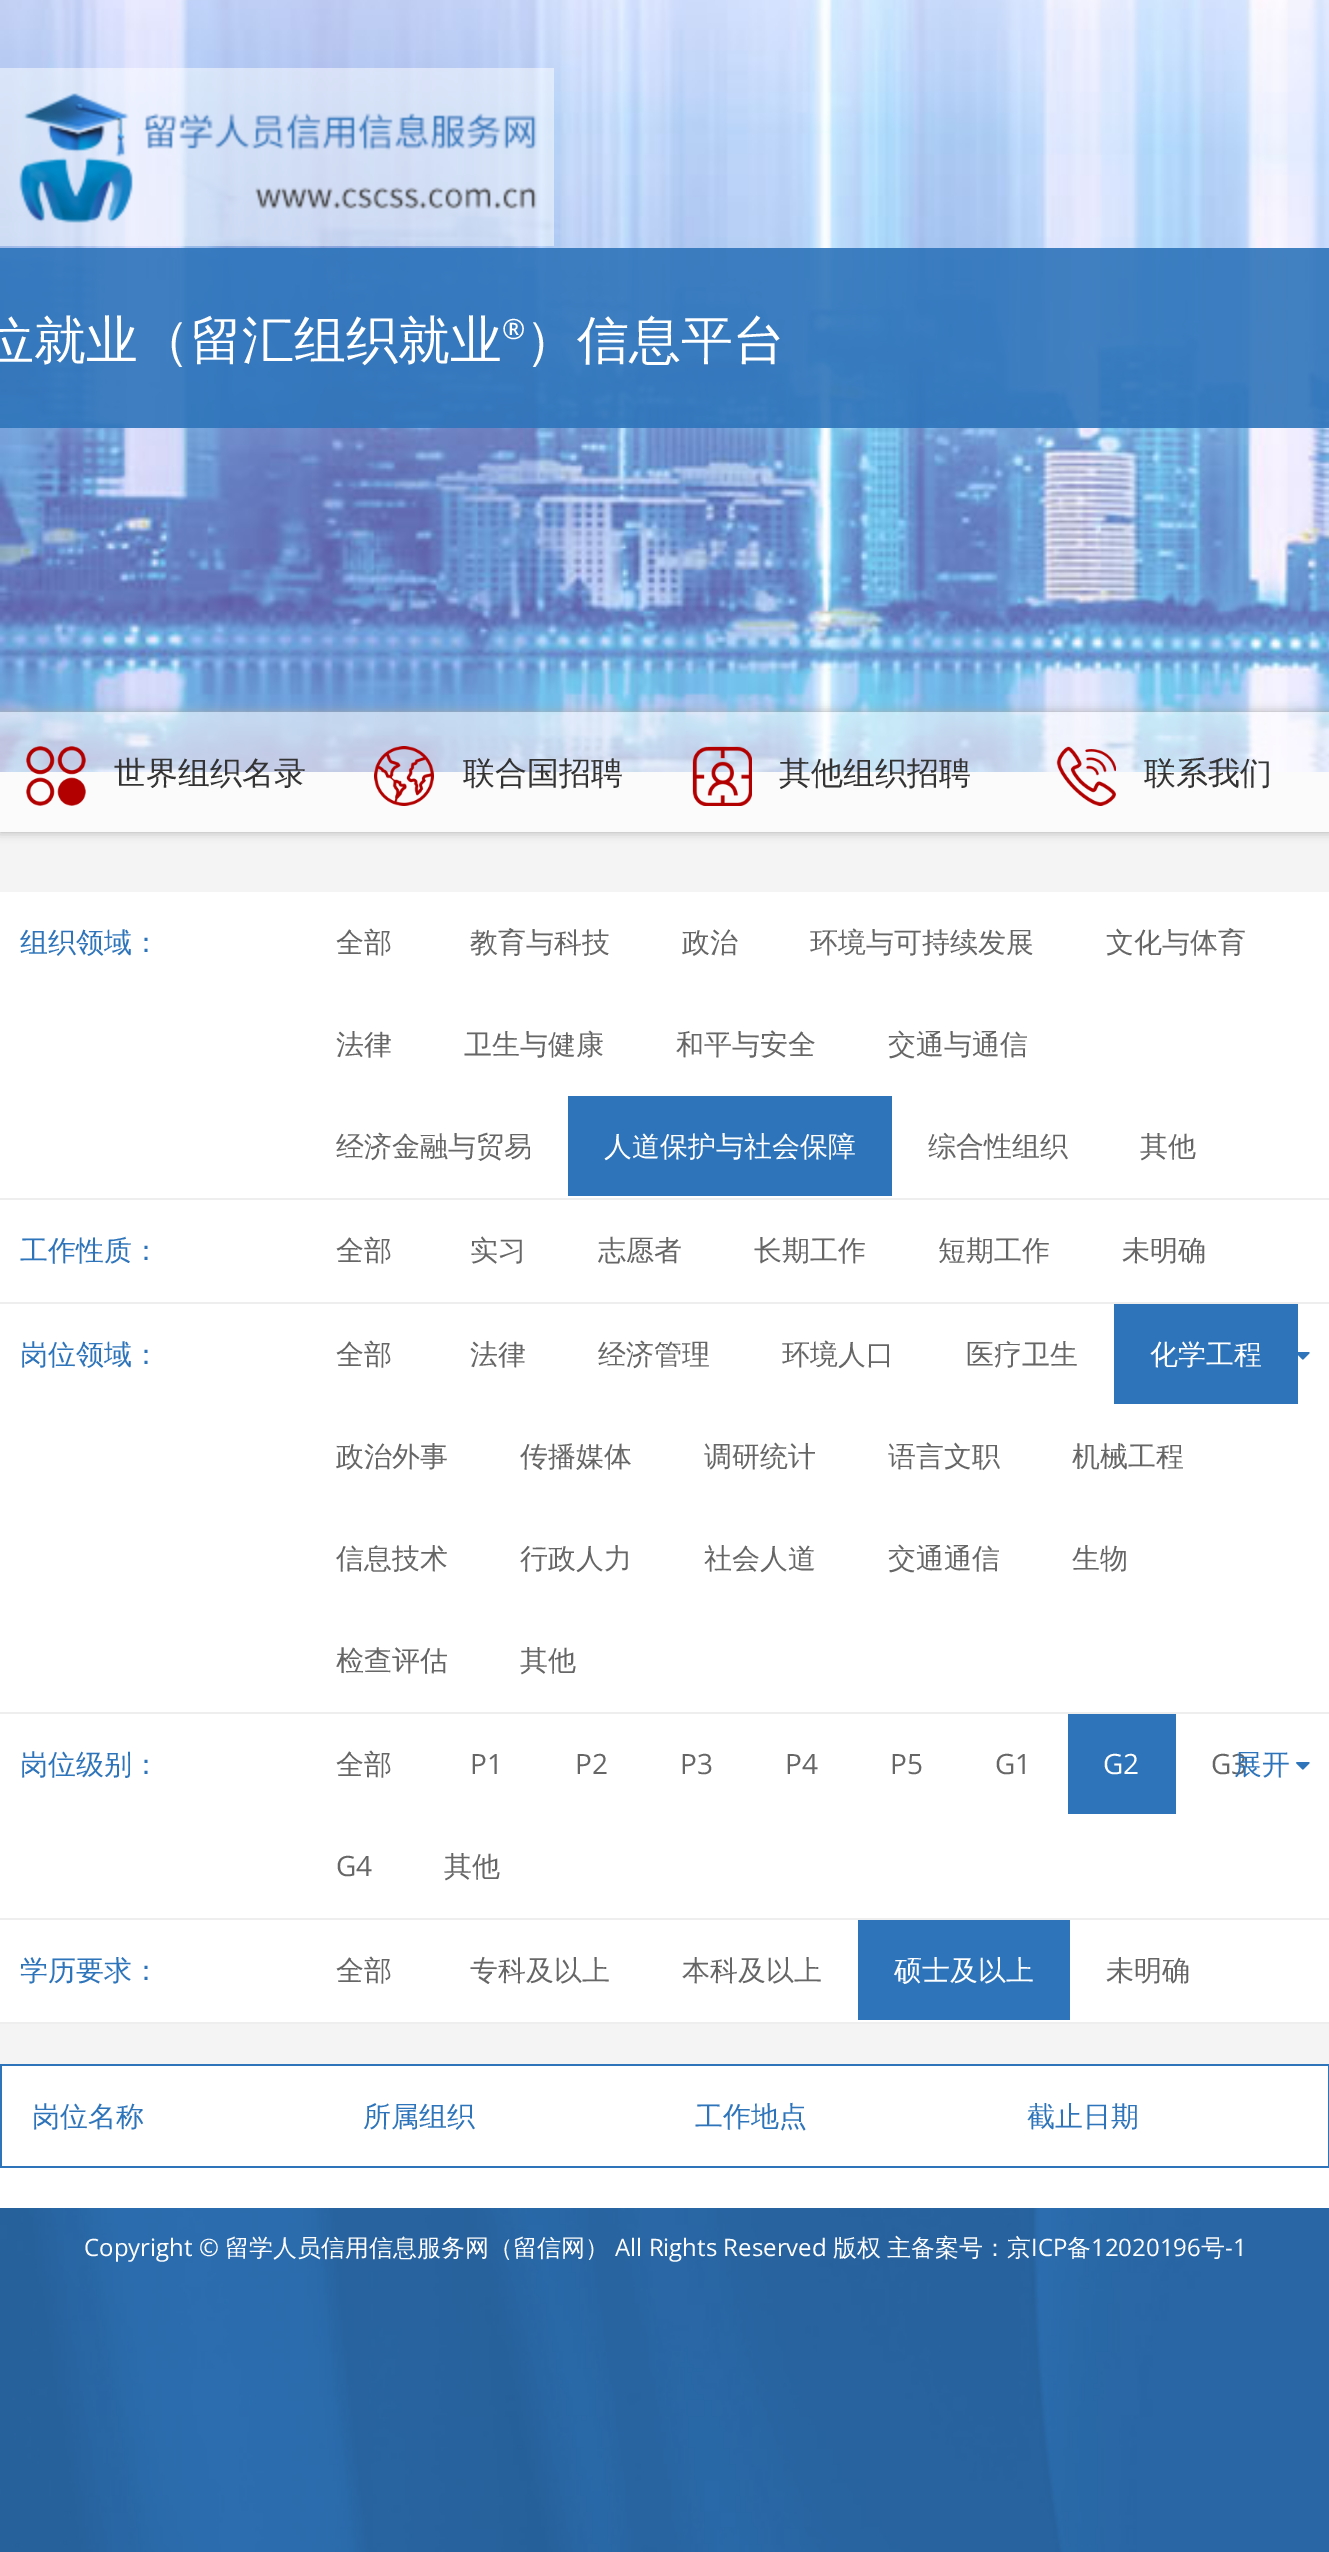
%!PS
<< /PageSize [1329 2552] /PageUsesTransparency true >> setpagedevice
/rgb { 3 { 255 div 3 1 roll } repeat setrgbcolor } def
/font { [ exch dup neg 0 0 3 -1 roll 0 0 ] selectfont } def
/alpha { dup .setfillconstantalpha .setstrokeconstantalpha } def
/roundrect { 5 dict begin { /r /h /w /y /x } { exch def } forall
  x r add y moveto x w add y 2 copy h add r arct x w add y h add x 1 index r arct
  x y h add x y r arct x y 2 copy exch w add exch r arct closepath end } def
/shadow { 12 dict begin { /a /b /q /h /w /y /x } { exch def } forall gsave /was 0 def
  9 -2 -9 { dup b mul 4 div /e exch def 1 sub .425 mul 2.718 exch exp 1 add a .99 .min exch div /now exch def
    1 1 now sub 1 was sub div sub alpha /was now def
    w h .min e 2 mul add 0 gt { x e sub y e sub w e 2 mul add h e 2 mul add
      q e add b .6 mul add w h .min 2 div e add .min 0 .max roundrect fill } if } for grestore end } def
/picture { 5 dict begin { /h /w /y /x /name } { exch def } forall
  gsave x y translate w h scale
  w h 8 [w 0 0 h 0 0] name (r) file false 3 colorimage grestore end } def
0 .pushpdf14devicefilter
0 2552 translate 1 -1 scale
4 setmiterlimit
255 255 255 rgb
0 0 1329 2552 rectfill
(img/1.rgb) 0 0 1329 772 picture
(img/2.rgb) 0 68 554 178 picture
0.9 alpha
46 116 186 rgb
0 248 1329 180 rectfill
1 alpha
244 244 244 rgb
0 772 1329 1292 rectfill
gsave
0 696 moveto 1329 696 lineto 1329 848 lineto 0 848 lineto closepath 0 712 moveto 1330 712 lineto 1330 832 lineto 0 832 lineto closepath eoclip newpath
171 171 171 rgb
0 712 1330 120 0 5 1 shadow
grestore
0.6 alpha
255 255 255 rgb
0 712 1329 120 rectfill
1 alpha
(img/3.rgb) 26 746 60 60 picture
(img/4.rgb) 374 746 60 60 picture
(img/5.rgb) 692 746 60 60 picture
(img/6.rgb) 1056 746 60 60 picture
[
  [0 892 1329 1130 255 255 255]
  [0 1198 1329 2 238 238 238]
  [568 1096 324 100 46 116 186]
  [0 1302 1329 2 238 238 238]
  [0 1712 1329 2 238 238 238]
  [1114 1304 184 100 46 116 186]
] { aload pop rgb rectfill } forall
(img/7.rgb) 1298 1352 12 8 picture
238 238 238 rgb
0 1918 1329 2 rectfill
46 116 186 rgb
1068 1714 108 100 rectfill
(img/8.rgb) 1296 1762 14 8 picture
[
  [0 2022 1329 2 238 238 238]
  [858 1920 212 100 46 116 186]
  [0 2064 1329 2 46 116 186]
  [1328 2064 1 104 46 116 186]
  [0 2166 1329 2 46 116 186]
  [0 2064 2 104 46 116 186]
] { aload pop rgb rectfill } forall
(img/9.rgb) 0 2208 1329 344 picture
/WenQuanYiZenHei-Medium 52 font
255 255 255 rgb
-18 358 moveto (位就业（留汇组织就业) show
/OpenSans-Medium 28 font
502 339 moveto (®) show
/WenQuanYiZenHei-Medium 52 font
525 358 moveto (）信息平台) show
/WenQuanYiZenHei-Medium 32 font
51 51 51 rgb
[
  [(世界组织名录) 114 784]
  [(联合国招聘) 463 784]
  [(其他组织招聘) 779 784]
  [(联系我们) 1144 784]
] { aload pop moveto show } forall
/WenQuanYiZenHei-Medium 28 font
46 116 186 rgb
20 952 moveto (组织领域：) show
102 102 102 rgb
[
  [(全部) 336 952]
  [(教育与科技) 470 952]
  [(政治) 682 952]
  [(环境与可持续发展) 810 952]
  [(文化与体育) 1106 952]
  [(法律) 336 1054]
  [(卫生与健康) 464 1054]
  [(和平与安全) 676 1054]
  [(交通与通信) 888 1054]
  [(经济金融与贸易) 336 1156]
] { aload pop moveto show } forall
255 255 255 rgb
604 1156 moveto (人道保护与社会保障) show
102 102 102 rgb
928 1156 moveto (综合性组织) show
1140 1156 moveto (其他) show
46 116 186 rgb
20 1260 moveto (工作性质：) show
102 102 102 rgb
[
  [(全部) 336 1260]
  [(实习) 470 1260]
  [(志愿者) 598 1260]
  [(长期工作) 754 1260]
  [(短期工作) 938 1260]
  [(未明确) 1122 1260]
] { aload pop moveto show } forall
46 116 186 rgb
20 1364 moveto (岗位领域：) show
102 102 102 rgb
[
  [(全部) 336 1364]
  [(法律) 470 1364]
  [(经济管理) 598 1364]
  [(环境人口) 782 1364]
  [(医疗卫生) 966 1364]
] { aload pop moveto show } forall
255 255 255 rgb
1150 1364 moveto (化学工程) show
102 102 102 rgb
[
  [(政治外事) 336 1466]
  [(传播媒体) 520 1466]
  [(调研统计) 704 1466]
  [(语言文职) 888 1466]
  [(机械工程) 1072 1466]
  [(信息技术) 336 1568]
  [(行政人力) 520 1568]
  [(社会人道) 704 1568]
  [(交通通信) 888 1568]
  [(生物) 1072 1568]
  [(检查评估) 336 1670]
  [(其他) 520 1670]
] { aload pop moveto show } forall
46 116 186 rgb
20 1774 moveto (岗位级别：) show
102 102 102 rgb
336 1774 moveto (全部) show
/OpenSans-Regular 28 font
[
  [(P1) 470 1774]
  [(P2) 575 1774]
  [(P3) 680 1774]
  [(P4) 785 1774]
  [(P5) 890 1774]
  [(G1) 995 1774]
] { aload pop moveto show } forall
255 255 255 rgb
1103 1774 moveto (G2) show
102 102 102 rgb
1211 1774 moveto (G3) show
336 1876 moveto (G4) show
/WenQuanYiZenHei-Medium 28 font
444 1876 moveto (其他) show
46 116 186 rgb
1234 1774 moveto (展开) show
20 1980 moveto (学历要求：) show
102 102 102 rgb
[
  [(全部) 336 1980]
  [(专科及以上) 470 1980]
  [(本科及以上) 682 1980]
] { aload pop moveto show } forall
255 255 255 rgb
894 1980 moveto (硕士及以上) show
102 102 102 rgb
1106 1980 moveto (未明确) show
46 116 186 rgb
[
  [(岗位名称) 32 2126]
  [(所属组织) 363 2126]
  [(工作地点) 695 2126]
  [(截止日期) 1027 2126]
] { aload pop moveto show } forall
/OpenSans-Regular 24 font
255 255 255 rgb
84 2256 moveto (Copyright ©) show
/WenQuanYiZenHei-Medium 24 font
225 2256 moveto (留学人员信用信息服务网（留信网）) show
/OpenSans-Regular 24 font
615 2256 moveto (All Rights Reserved) show
/WenQuanYiZenHei-Medium 24 font
833 2256 moveto (版权) show
887 2256 moveto (主备案号：京) show
/OpenSans-Regular 24 font
1031 2256 moveto (ICP) show
/WenQuanYiZenHei-Medium 24 font
1067 2256 moveto (备) show
/OpenSans-Regular 24 font
1091 2256 moveto (12020196) show
/WenQuanYiZenHei-Medium 24 font
1201 2256 moveto (号) show
/OpenSans-Regular 24 font
1225 2256 moveto (-1) show
.poppdf14devicefilter showpage
